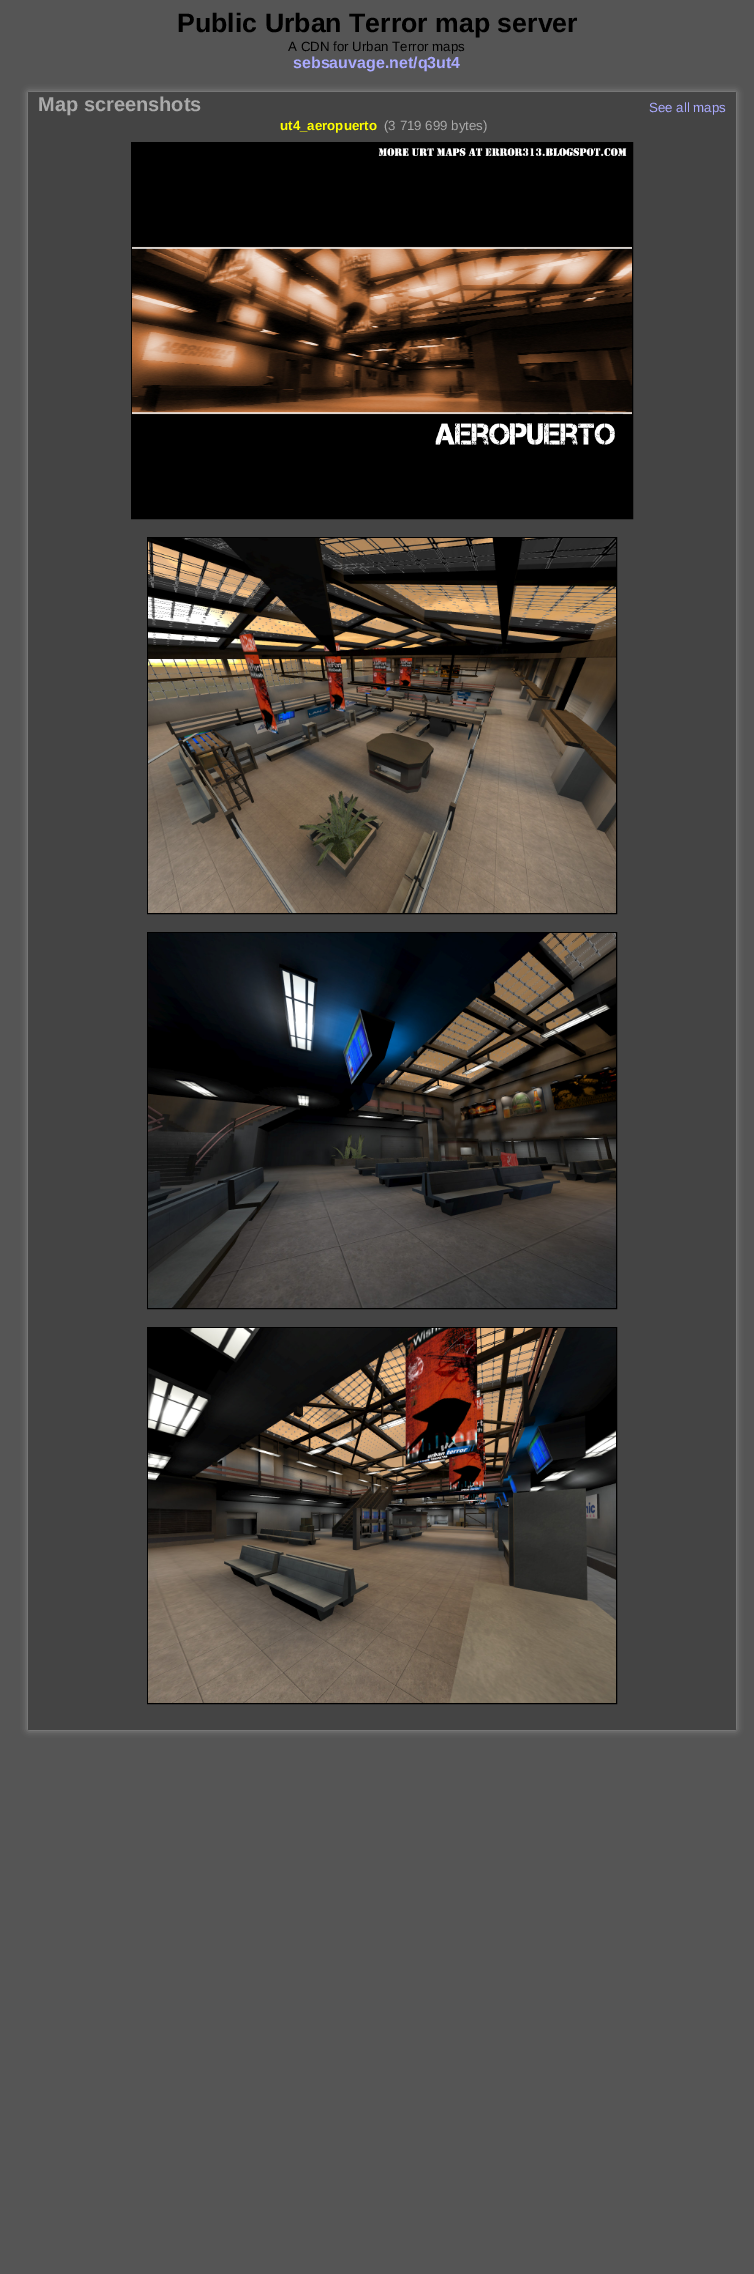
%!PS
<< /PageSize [754 2274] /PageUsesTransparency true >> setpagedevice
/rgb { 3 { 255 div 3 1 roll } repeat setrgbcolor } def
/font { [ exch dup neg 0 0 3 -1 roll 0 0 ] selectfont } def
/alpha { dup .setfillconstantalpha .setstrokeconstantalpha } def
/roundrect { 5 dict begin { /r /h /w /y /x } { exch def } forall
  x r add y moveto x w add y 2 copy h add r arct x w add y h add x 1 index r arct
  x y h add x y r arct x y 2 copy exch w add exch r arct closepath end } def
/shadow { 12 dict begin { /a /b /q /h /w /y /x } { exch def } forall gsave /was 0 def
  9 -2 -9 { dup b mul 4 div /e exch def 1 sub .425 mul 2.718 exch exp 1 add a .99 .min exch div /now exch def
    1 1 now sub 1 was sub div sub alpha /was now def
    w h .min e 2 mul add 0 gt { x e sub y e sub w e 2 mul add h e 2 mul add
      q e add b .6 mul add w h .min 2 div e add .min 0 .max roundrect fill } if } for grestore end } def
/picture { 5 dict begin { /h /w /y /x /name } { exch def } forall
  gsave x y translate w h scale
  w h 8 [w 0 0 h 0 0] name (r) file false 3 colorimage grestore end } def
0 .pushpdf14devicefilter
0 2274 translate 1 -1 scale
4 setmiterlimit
85 85 85 rgb
0 0 754 2274 rectfill
153 153 153 rgb
28 92 708 1638 0 3.5 1 shadow
68 68 68 rgb
28 92 708 1638 rectfill
0 0 0 rgb
131.5 142.5 501 376 rectstroke
(img/1.rgb) 132 143 500 375 picture
147.5 537.5 469 376 rectstroke
(img/2.rgb) 148 538 468 375 picture
147.5 932.5 469 376 rectstroke
(img/3.rgb) 148 933 468 375 picture
147.5 1327.5 469 376 rectstroke
(img/4.rgb) 148 1328 468 375 picture
/LiberationSans-Bold 26.7 font
177 32 moveto (Public Urban Terror map server) show
/LiberationSans-Regular 13.3 font
288 51 moveto (A CDN for Urban Terror maps) show
/LiberationSans-Bold 16 font
170 170 255 rgb
293 68 moveto (sebsauvage.net/q3ut4) show
/LiberationSans-Bold 20 font
170 170 170 rgb
38 111 moveto (Map screenshots) show
/LiberationSans-Regular 13.3 font
170 170 255 rgb
649 112 moveto (See all maps) show
/LiberationSans-Bold 13.3 font
255 255 0 rgb
280 130 moveto (ut4_aeropuerto) show
/LiberationSans-Regular 13.3 font
170 170 170 rgb
384 130 moveto (\(3 719 699 bytes\)) show
.poppdf14devicefilter showpage
